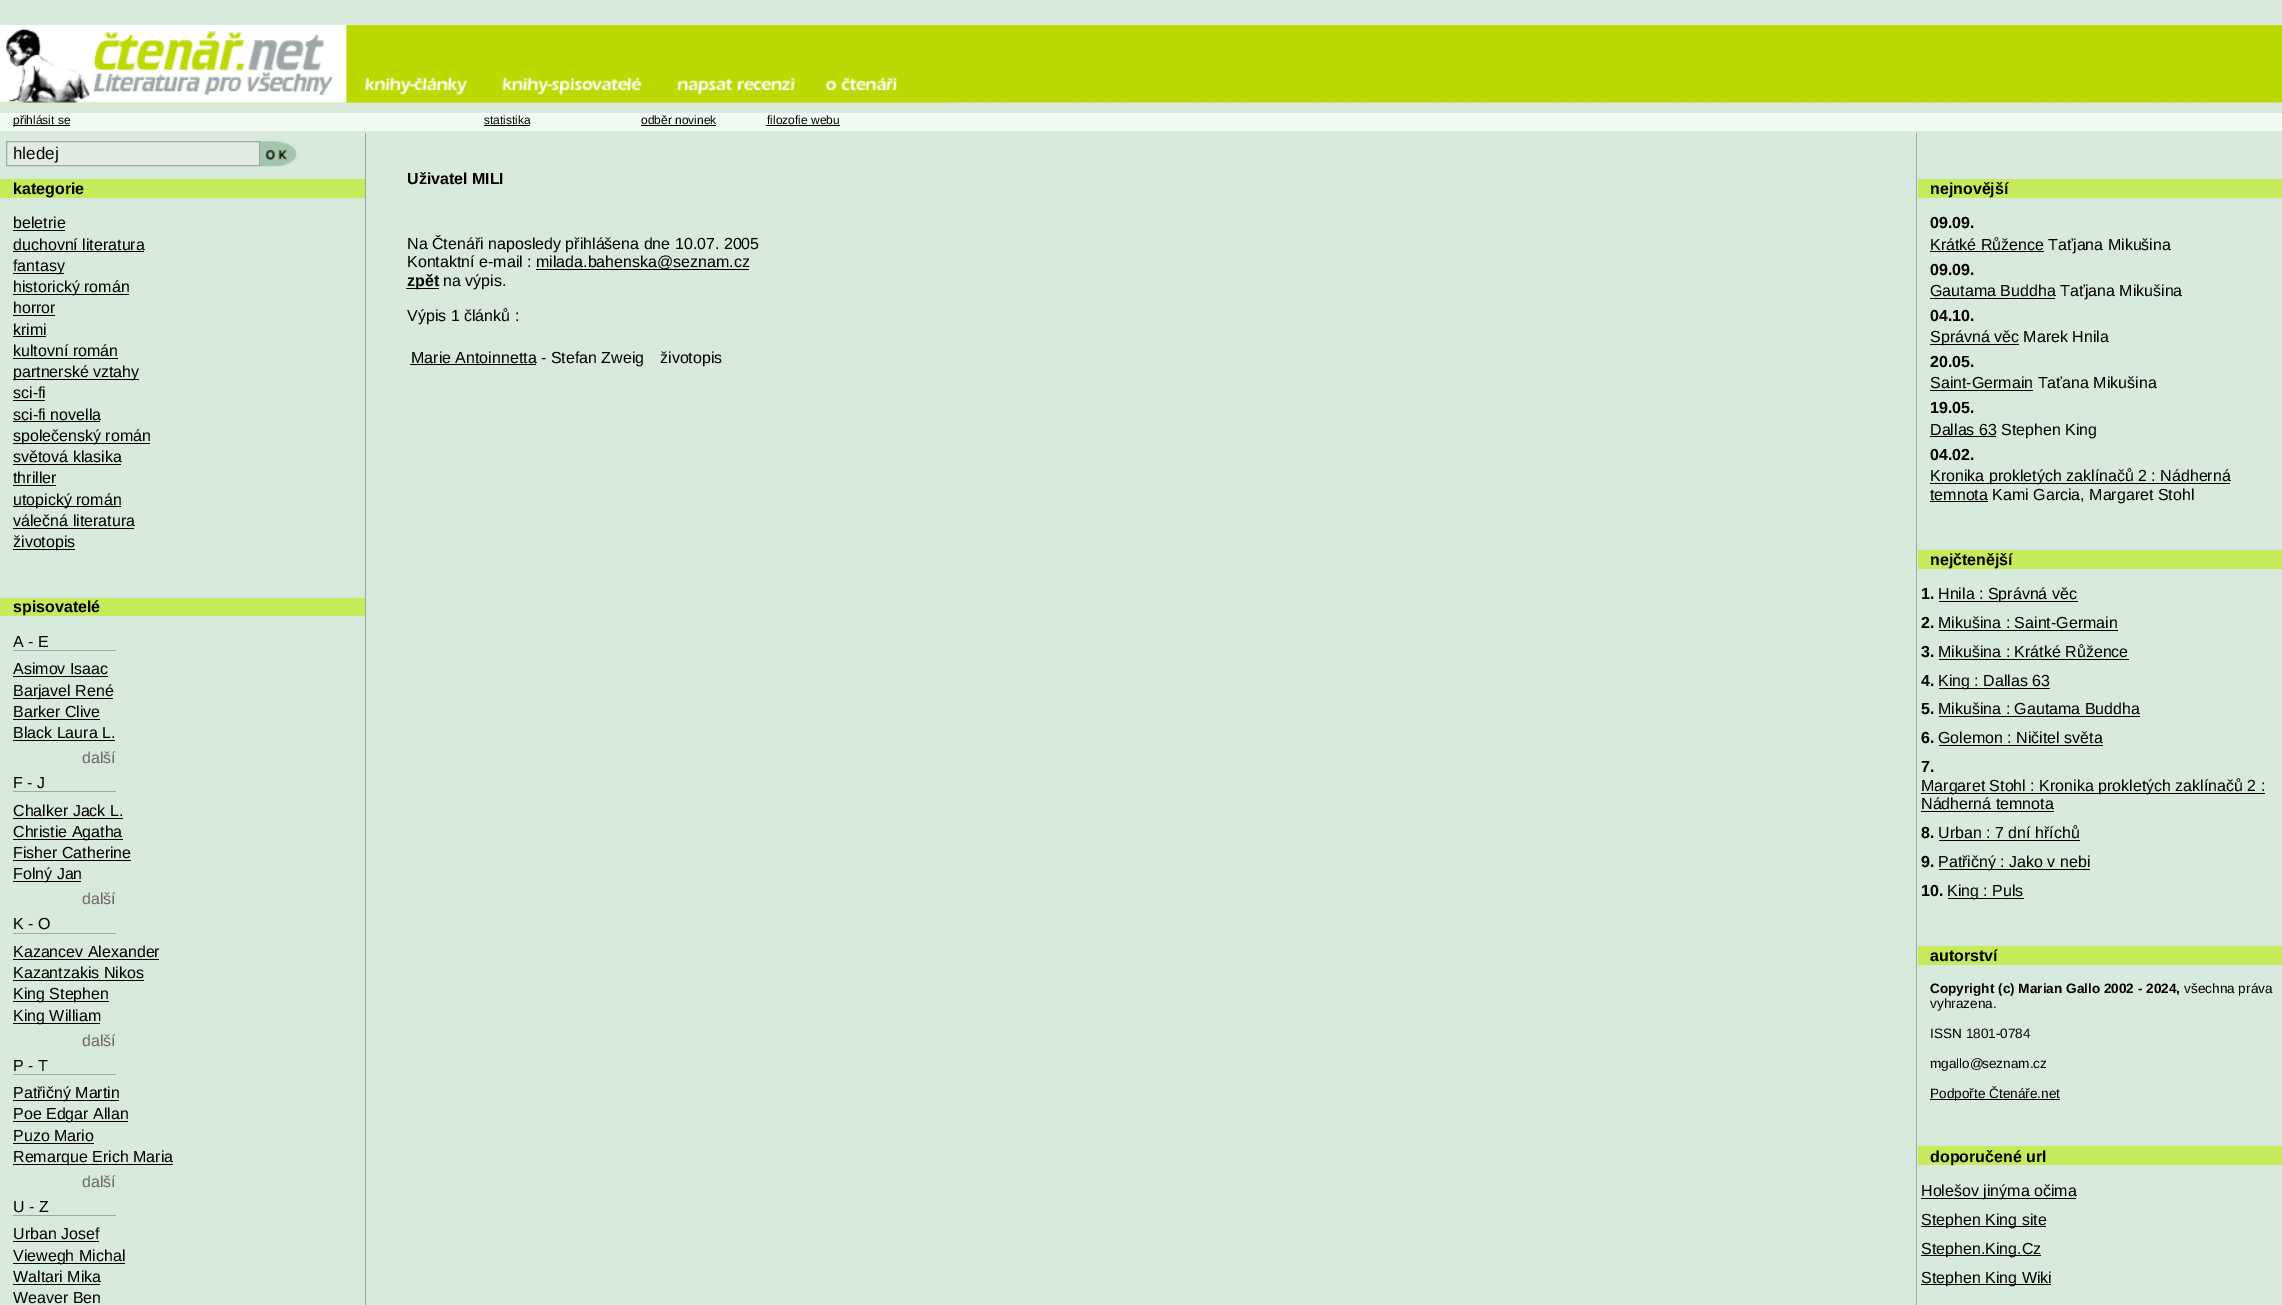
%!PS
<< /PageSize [2282 1305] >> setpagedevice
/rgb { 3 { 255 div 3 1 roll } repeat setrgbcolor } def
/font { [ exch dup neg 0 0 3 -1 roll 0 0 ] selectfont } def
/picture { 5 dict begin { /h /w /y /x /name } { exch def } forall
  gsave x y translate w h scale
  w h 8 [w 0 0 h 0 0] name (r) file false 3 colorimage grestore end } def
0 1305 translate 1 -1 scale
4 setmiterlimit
217 234 221 rgb
0 0 2282 1305 rectfill
(img/1.rgb) 0 25 2282 78 picture
(img/2.rgb) 0 25 950 78 picture
[
  [0 113 2282 18 241 251 241]
  [13 125 57 1 0 0 0]
  [484 125 46 1 0 0 0]
  [641 125 75 1 0 0 0]
  [766 125 74 1 0 0 0]
  [365 133 1 1172 157 167 168]
] { aload pop rgb rectfill } forall
226 235 228 rgb
6.5 141.5 moveto 259.5 141.5 lineto 259.5 165.5 lineto 6.5 165.5 lineto closepath gsave fill grestore
166 166 166 rgb
stroke
(img/3.rgb) 260 141 37 26 picture
[
  [0 179 365 19 198 234 89]
  [13 230 52 1 0 0 0]
  [13 251 131 1 0 0 0]
  [13 273 51 1 0 0 0]
  [13 294 116 1 0 0 0]
  [13 315 42 1 0 0 0]
  [13 336 33 1 0 0 0]
  [13 358 105 1 0 0 0]
  [13 379 126 1 0 0 0]
  [13 400 32 1 0 0 0]
  [13 421 87 1 0 0 0]
  [13 443 137 1 0 0 0]
  [13 464 108 1 0 0 0]
  [13 485 43 1 0 0 0]
  [13 506 108 1 0 0 0]
  [13 528 121 1 0 0 0]
  [13 549 62 1 0 0 0]
  [0 598 365 18 198 234 89]
  [13 650 103 1 157 167 168]
  [13 676 95 1 0 0 0]
  [13 698 100 1 0 0 0]
  [13 719 87 1 0 0 0]
  [13 740 102 1 0 0 0]
  [13 791 103 1 157 167 168]
  [13 818 110 1 0 0 0]
  [13 839 110 1 0 0 0]
  [13 860 118 1 0 0 0]
  [13 881 68 1 0 0 0]
  [13 933 103 1 157 167 168]
  [13 959 146 1 0 0 0]
  [13 980 131 1 0 0 0]
  [13 1001 96 1 0 0 0]
  [13 1023 87 1 0 0 0]
  [13 1074 103 1 157 167 168]
  [13 1100 106 1 0 0 0]
  [13 1121 115 1 0 0 0]
  [13 1143 81 1 0 0 0]
  [13 1164 160 1 0 0 0]
  [13 1215 103 1 157 167 168]
  [13 1241 86 1 0 0 0]
  [13 1263 112 1 0 0 0]
  [13 1284 87 1 0 0 0]
  [536 269 213 1 0 0 0]
  [406 288 33 1 0 0 0]
  [410 364 126 1 0 0 0]
  [1916 133 1 1172 157 167 168]
  [1918 179 364 19 198 234 89]
  [1930 251 114 1 0 0 0]
  [1930 298 125 1 0 0 0]
  [1930 344 89 1 0 0 0]
  [1930 390 103 1 0 0 0]
  [1930 436 66 1 0 0 0]
  [1930 483 300 1 0 0 0]
  [1930 501 58 1 0 0 0]
  [1918 550 364 19 198 234 89]
  [1939 601 139 1 0 0 0]
  [1939 630 179 1 0 0 0]
  [1939 659 190 1 0 0 0]
  [1939 688 111 1 0 0 0]
  [1939 716 201 1 0 0 0]
  [1939 745 164 1 0 0 0]
  [1921 793 344 1 0 0 0]
  [1921 811 133 1 0 0 0]
  [1939 840 141 1 0 0 0]
  [1939 869 151 1 0 0 0]
  [1948 898 76 1 0 0 0]
  [1918 946 364 19 198 234 89]
  [1930 1099 130 1 0 0 0]
  [1918 1146 364 19 198 234 89]
  [1921 1198 155 1 0 0 0]
  [1921 1226 125 1 0 0 0]
  [1921 1255 120 1 0 0 0]
  [1921 1284 130 1 0 0 0]
] { aload pop rgb rectfill } forall
/LiberationSans-Regular 12 font
[
  [(přihlásit se) 13 124]
  [(statistika) 484 124]
  [(odběr novinek) 641 124]
  [(filozofie webu) 767 124]
] { aload pop moveto show } forall
/LiberationSans-Regular 17 font
13 159 moveto (hledej) show
/LiberationSans-Bold 16 font
13 194 moveto (kategorie) show
/LiberationSans-Regular 16 font
[
  [(beletrie) 13 228]
  [(duchovní literatura) 13 250]
  [(fantasy) 13 271]
  [(historický román) 13 292]
  [(horror) 13 313]
  [(krimi) 13 335]
  [(kultovní román) 13 356]
  [(partnerské vztahy) 13 377]
  [(sci-fi) 13 398]
  [(sci-fi novella) 13 420]
  [(společenský román) 13 441]
  [(světová klasika) 13 462]
  [(thriller) 13 483]
  [(utopický román) 13 505]
  [(válečná literatura) 13 526]
  [(životopis) 13 547]
] { aload pop moveto show } forall
/LiberationSans-Bold 16 font
13 612 moveto (spisovatelé) show
/LiberationSans-Regular 16 font
[
  [(A - E) 13 647]
  [(Asimov Isaac) 13 674]
  [(Barjavel René) 13 696]
  [(Barker Clive) 13 717]
  [(Black Laura L.) 13 738]
] { aload pop moveto show } forall
108 103 103 rgb
82 763 moveto (další) show
0 0 0 rgb
[
  [(F - J) 13 788]
  [(Chalker Jack L.) 13 816]
  [(Christie Agatha) 13 837]
  [(Fisher Catherine) 13 858]
  [(Folný Jan) 13 879]
] { aload pop moveto show } forall
108 103 103 rgb
82 904 moveto (další) show
0 0 0 rgb
[
  [(K - O) 13 929]
  [(Kazancev Alexander) 13 957]
  [(Kazantzakis Nikos) 13 978]
  [(King Stephen) 13 999]
  [(King William) 13 1021]
] { aload pop moveto show } forall
108 103 103 rgb
82 1046 moveto (další) show
0 0 0 rgb
[
  [(P - T) 13 1071]
  [(Patřičný Martin) 13 1098]
  [(Poe Edgar Allan) 13 1119]
  [(Puzo Mario) 13 1141]
  [(Remarque Erich Maria) 13 1162]
] { aload pop moveto show } forall
108 103 103 rgb
82 1187 moveto (další) show
0 0 0 rgb
[
  [(U - Z) 13 1212]
  [(Urban Josef) 13 1239]
  [(Viewegh Michal) 13 1261]
  [(Waltari Mika) 13 1282]
  [(Weaver Ben) 13 1303]
] { aload pop moveto show } forall
/LiberationSans-Bold 16 font
407 184 moveto (Uživatel MILI) show
/LiberationSans-Regular 16 font
[
  [(Na Čtenáři naposledy přihlášena dne 10.07. 2005) 407 249]
  [(Kontaktní e-mail :) 407 267]
  [(milada.bahenska@seznam.cz) 536 267]
] { aload pop moveto show } forall
/LiberationSans-Bold 16 font
407 286 moveto (zpět) show
/LiberationSans-Regular 16 font
[
  [(na výpis.) 443 286]
  [(Výpis 1 článků :) 407 321]
  [(Marie Antoinnetta - Stefan Zweig) 411 363]
  [(životopis) 660 363]
] { aload pop moveto show } forall
/LiberationSans-Bold 16 font
1930 194 moveto (nejnovější) show
1930 228 moveto (09.09.) show
/LiberationSans-Regular 16 font
1930 250 moveto (Krátké Růžence Taťjana Mikušina) show
/LiberationSans-Bold 16 font
1930 275 moveto (09.09.) show
/LiberationSans-Regular 16 font
1930 296 moveto (Gautama Buddha Taťjana Mikušina) show
/LiberationSans-Bold 16 font
1930 321 moveto (04.10.) show
/LiberationSans-Regular 16 font
1930 342 moveto (Správná věc Marek Hnila) show
/LiberationSans-Bold 16 font
1930 367 moveto (20.05.) show
/LiberationSans-Regular 16 font
1930 388 moveto (Saint-Germain Taťana Mikušina) show
/LiberationSans-Bold 16 font
1930 413 moveto (19.05.) show
/LiberationSans-Regular 16 font
1930 435 moveto (Dallas 63 Stephen King) show
/LiberationSans-Bold 16 font
1930 460 moveto (04.02.) show
/LiberationSans-Regular 16 font
1930 481 moveto (Kronika prokletých zaklínačů 2 : Nádherná) show
1930 500 moveto (temnota Kami Garcia, Margaret Stohl) show
/LiberationSans-Bold 16 font
1930 565 moveto (nejčtenější) show
1921 599 moveto (1.) show
/LiberationSans-Regular 16 font
1938 599 moveto (Hnila : Správná věc) show
/LiberationSans-Bold 16 font
1921 628 moveto (2.) show
/LiberationSans-Regular 16 font
1938 628 moveto (Mikušina : Saint-Germain) show
/LiberationSans-Bold 16 font
1921 657 moveto (3.) show
/LiberationSans-Regular 16 font
1938 657 moveto (Mikušina : Krátké Růžence) show
/LiberationSans-Bold 16 font
1921 686 moveto (4.) show
/LiberationSans-Regular 16 font
1938 686 moveto (King : Dallas 63) show
/LiberationSans-Bold 16 font
1921 714 moveto (5.) show
/LiberationSans-Regular 16 font
1938 714 moveto (Mikušina : Gautama Buddha) show
/LiberationSans-Bold 16 font
1921 743 moveto (6.) show
/LiberationSans-Regular 16 font
1938 743 moveto (Golemon : Ničitel světa) show
/LiberationSans-Bold 16 font
1921 772 moveto (7.) show
/LiberationSans-Regular 16 font
1921 791 moveto (Margaret Stohl : Kronika prokletých zaklínačů 2 :) show
1921 809 moveto (Nádherná temnota) show
/LiberationSans-Bold 16 font
1921 838 moveto (8.) show
/LiberationSans-Regular 16 font
1938 838 moveto (Urban : 7 dní hříchů) show
/LiberationSans-Bold 16 font
1921 867 moveto (9.) show
/LiberationSans-Regular 16 font
1938 867 moveto (Patřičný : Jako v nebi) show
/LiberationSans-Bold 16 font
1921 896 moveto (10.) show
/LiberationSans-Regular 16 font
1947 896 moveto (King : Puls) show
/LiberationSans-Bold 16 font
1930 961 moveto (autorství) show
/LiberationSans-Bold 13.6 font
1930 993 moveto (Copyright \(c\) Marian Gallo 2002 - 2024,) show
/LiberationSans-Regular 13.6 font
[
  [(všechna práva) 2184 993]
  [(vyhrazena.) 1930 1008]
  [(ISSN 1801-0784) 1930 1038]
  [(mgallo@) 1930 1068]
  [(seznam.cz) 1982 1068]
  [(Podpořte Čtenáře.net) 1930 1098]
] { aload pop moveto show } forall
/LiberationSans-Bold 16 font
1930 1162 moveto (doporučené url) show
/LiberationSans-Regular 16 font
[
  [(Holešov jinýma očima) 1921 1196]
  [(Stephen King site) 1921 1225]
  [(Stephen.King.Cz) 1921 1254]
  [(Stephen King Wiki) 1921 1283]
] { aload pop moveto show } forall
showpage
